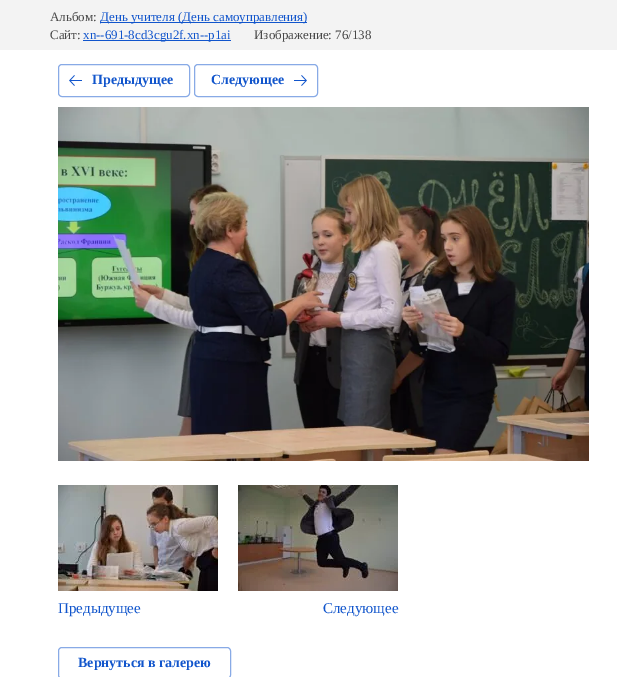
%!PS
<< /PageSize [617 677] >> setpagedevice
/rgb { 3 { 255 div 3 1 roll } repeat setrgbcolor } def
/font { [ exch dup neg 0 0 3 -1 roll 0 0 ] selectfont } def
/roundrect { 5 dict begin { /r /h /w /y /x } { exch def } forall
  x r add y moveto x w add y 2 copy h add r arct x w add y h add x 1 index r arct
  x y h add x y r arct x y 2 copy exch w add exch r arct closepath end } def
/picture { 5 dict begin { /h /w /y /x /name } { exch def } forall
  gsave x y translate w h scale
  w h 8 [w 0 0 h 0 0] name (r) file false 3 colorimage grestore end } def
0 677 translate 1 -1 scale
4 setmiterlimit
255 255 255 rgb
0 0 617 677 rectfill
[
  [0 0 617 50 243 243 243]
  [100 22 207 1 17 85 204]
  [83 40 148 1 17 85 204]
] { aload pop rgb rectfill } forall
136 170 230 rgb
58.5 64.5 131 32 3.5 roundrect stroke
(img/1.rgb) 69 75 13 11 picture
194.5 64.5 123 32 3.5 roundrect stroke
(img/2.rgb) 294 75 13 11 picture
(img/3.rgb) 58 107 531 354 picture
(img/4.rgb) 58 485 160 106 picture
(img/5.rgb) 238 485 160 106 picture
58.5 647.5 172 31 3.5 roundrect stroke
/LiberationSerif-Regular 13 font
72 72 72 rgb
50 21 moveto (Альбом:) show
17 85 204 rgb
100 21 moveto (День учителя \(День самоуправления\)) show
72 72 72 rgb
50 39 moveto (Сайт:) show
17 85 204 rgb
83 39 moveto (xn--691-8cd3cgu2f.xn--p1ai) show
72 72 72 rgb
254 39 moveto (Изображение: 76/138) show
/LiberationSerif-Bold 14 font
17 85 204 rgb
92 84 moveto (Предыдущее) show
211 84 moveto (Следующее) show
/LiberationSerif-Regular 15 font
58 613 moveto (Предыдущее) show
323 613 moveto (Следующее) show
/LiberationSerif-Bold 14 font
78 667 moveto (Вернуться в галерею) show
showpage
